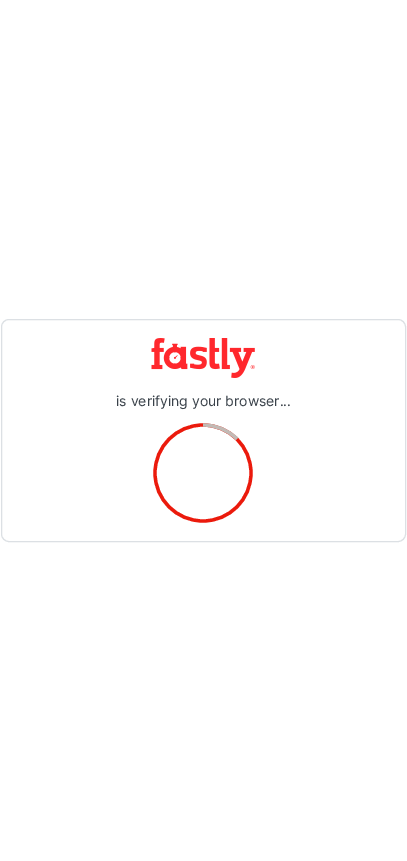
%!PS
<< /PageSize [407 861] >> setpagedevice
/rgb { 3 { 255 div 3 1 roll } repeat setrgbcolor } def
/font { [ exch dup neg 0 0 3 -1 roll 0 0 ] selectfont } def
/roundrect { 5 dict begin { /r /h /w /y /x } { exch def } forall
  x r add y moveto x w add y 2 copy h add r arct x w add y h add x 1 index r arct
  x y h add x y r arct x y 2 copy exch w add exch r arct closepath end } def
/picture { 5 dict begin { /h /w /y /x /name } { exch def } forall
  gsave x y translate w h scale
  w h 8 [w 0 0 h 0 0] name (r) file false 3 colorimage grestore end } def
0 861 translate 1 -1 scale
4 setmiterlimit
255 255 255 rgb
0 0 407 861 rectfill
220 224 228 rgb
1.5 319.5 404 222 7.5 roundrect stroke
(img/1.rgb) 151 338 104 40 picture
235 26 12 rgb
3.3 setlinewidth
155 473 moveto 155 446.5 176.5 425 203 425 curveto 229.5 425 251 446.5 251 473 curveto 251 499.5 229.5 521 203 521 curveto 176.5 521 155 499.5 155 473 curveto closepath stroke
194 186 181 rgb
237 439 moveto 228 430 216 425 203 425 curveto stroke
/Inter-Regular 14 font
58 66 74 rgb
116 406 moveto (is verifying your browser...) show
showpage
